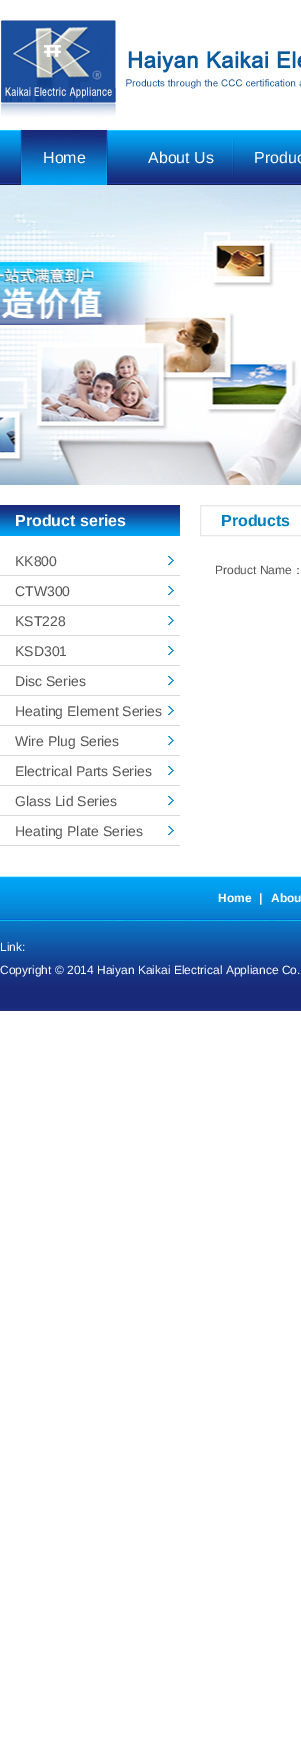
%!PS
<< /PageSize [301 1742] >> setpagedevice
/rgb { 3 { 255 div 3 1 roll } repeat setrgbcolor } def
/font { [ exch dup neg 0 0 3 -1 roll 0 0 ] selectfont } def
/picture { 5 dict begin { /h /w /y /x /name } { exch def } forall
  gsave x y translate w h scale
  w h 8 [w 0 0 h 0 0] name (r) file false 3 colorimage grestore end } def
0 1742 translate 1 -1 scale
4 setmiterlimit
255 255 255 rgb
0 0 301 1742 rectfill
(img/1.rgb) 0 130 301 55 picture
(img/2.rgb) 0 16 301 114 picture
(img/3.rgb) 20 130 88 55 picture
(img/4.rgb) 232 140 2 35 picture
(img/5.rgb) 0 185 301 300 picture
(img/6.rgb) 0 505 180 31 picture
(img/7.rgb) 0 555 180 21 picture
(img/7.rgb) 0 585 180 21 picture
(img/7.rgb) 0 615 180 21 picture
(img/7.rgb) 0 645 180 21 picture
(img/7.rgb) 0 675 180 21 picture
(img/7.rgb) 0 705 180 21 picture
(img/7.rgb) 0 735 180 21 picture
(img/7.rgb) 0 765 180 21 picture
(img/7.rgb) 0 795 180 21 picture
(img/7.rgb) 0 825 180 21 picture
231 231 231 rgb
200.5 505.5 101 30 rectstroke
(img/8.rgb) 0 876 301 135 picture
(img/9.rgb) 0 919 301 2 picture
/LiberationSans-Regular 16 font
255 255 255 rgb
[
  [(Home) 43 163]
  [(About Us) 148 163]
  [(Produc) 254 163]
] { aload pop moveto show } forall
/LiberationSans-Bold 16 font
15 526 moveto (Product series) show
/LiberationSans-Regular 14 font
85 85 85 rgb
[
  [(KK800) 15 566]
  [(CTW300) 15 596]
  [(KST228) 15 626]
  [(KSD301) 15 656]
  [(Disc Series) 15 686]
  [(Heating Element Series) 15 716]
  [(Wire Plug Series) 15 746]
  [(Electrical Parts Series) 15 776]
  [(Glass Lid Series) 15 806]
  [(Heating Plate Series) 15 836]
] { aload pop moveto show } forall
/LiberationSans-Bold 16 font
0 127 191 rgb
221 526 moveto (Products) show
/LiberationSans-Regular 12 font
85 85 85 rgb
215 574 moveto (Product Name) show
/WenQuanYiZenHei-Medium 12 font
292 574 moveto (：) show
/LiberationSans-Bold 12 font
255 255 255 rgb
[
  [(Home) 218 902]
  [(|) 259 902]
  [(Abou) 271 902]
] { aload pop moveto show } forall
/LiberationSans-Regular 12 font
0 951 moveto (Link:) show
0 974 moveto (Copyright © 2014 Haiyan Kaikai Electrical Appliance Co.) show
showpage
